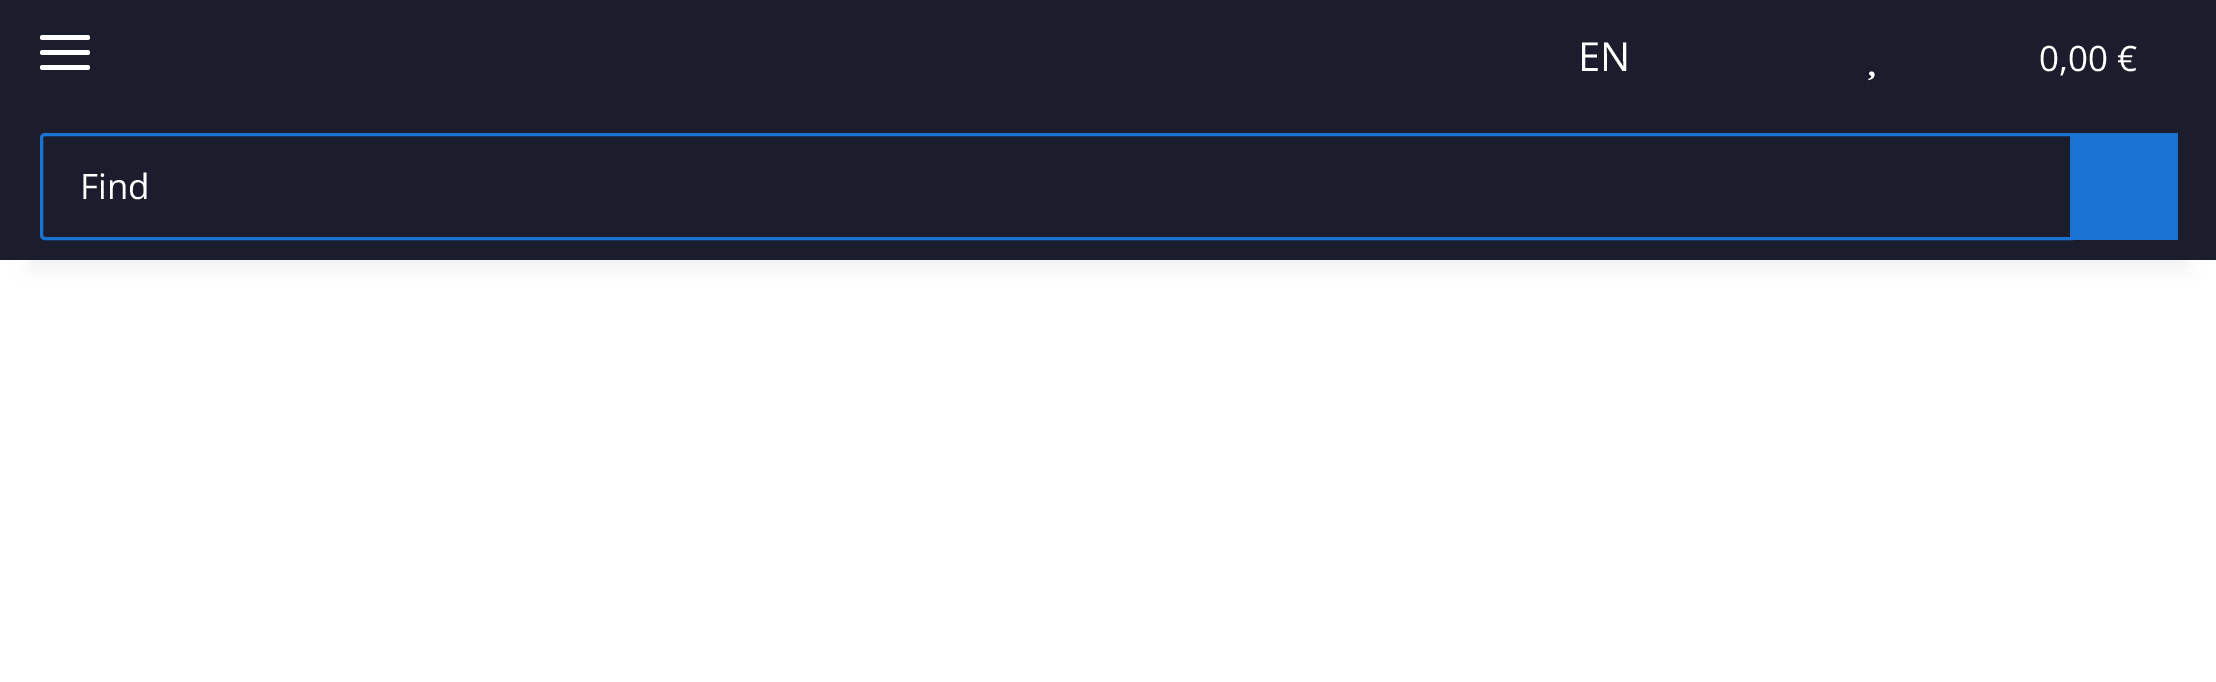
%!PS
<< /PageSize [2216 682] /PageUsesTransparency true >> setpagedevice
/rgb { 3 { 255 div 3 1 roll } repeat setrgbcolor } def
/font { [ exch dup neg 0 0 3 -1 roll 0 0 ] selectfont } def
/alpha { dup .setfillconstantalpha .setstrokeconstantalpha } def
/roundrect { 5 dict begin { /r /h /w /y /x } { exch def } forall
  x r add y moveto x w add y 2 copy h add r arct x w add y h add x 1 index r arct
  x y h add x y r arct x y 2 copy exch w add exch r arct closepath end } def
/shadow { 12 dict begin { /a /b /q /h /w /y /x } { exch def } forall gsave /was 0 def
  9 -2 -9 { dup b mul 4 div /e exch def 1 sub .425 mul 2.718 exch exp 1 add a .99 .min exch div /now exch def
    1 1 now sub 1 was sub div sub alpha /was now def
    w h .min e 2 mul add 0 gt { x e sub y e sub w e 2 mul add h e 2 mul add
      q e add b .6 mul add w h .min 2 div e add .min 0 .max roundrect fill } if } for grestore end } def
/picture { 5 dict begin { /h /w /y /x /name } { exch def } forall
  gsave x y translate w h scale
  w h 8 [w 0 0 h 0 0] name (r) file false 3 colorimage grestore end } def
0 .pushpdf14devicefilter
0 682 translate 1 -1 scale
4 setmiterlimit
255 255 255 rgb
0 0 2216 682 rectfill
0 0 0 rgb
30 70 2158 200 0 11 0.06 shadow
28 29 44 rgb
0 0 2216 260 rectfill
255 255 255 rgb
40 50 50 5 2.5 roundrect fill
40 35 50 5 2.5 roundrect fill
40 65 50 5 2.5 roundrect fill
(img/1.rgb) 1868 71 7 10 picture
25 115 211 rgb
3 setlinewidth
45 134.5 moveto 2071.5 134.5 lineto 2071.5 238.5 lineto 45 238.5 lineto 43 238.5 41.5 237 41.5 235 curveto 41.5 138 lineto 41.5 136 43 134.5 45 134.5 curveto closepath stroke
2073 133 105 107 rectfill
/OpenSans-Regular 40 font
255 255 255 rgb
1578 71 moveto (EN) show
/OpenSans-Regular 35 font
2039 71 moveto (0,00 €) show
80 199 moveto (Find) show
.poppdf14devicefilter showpage
